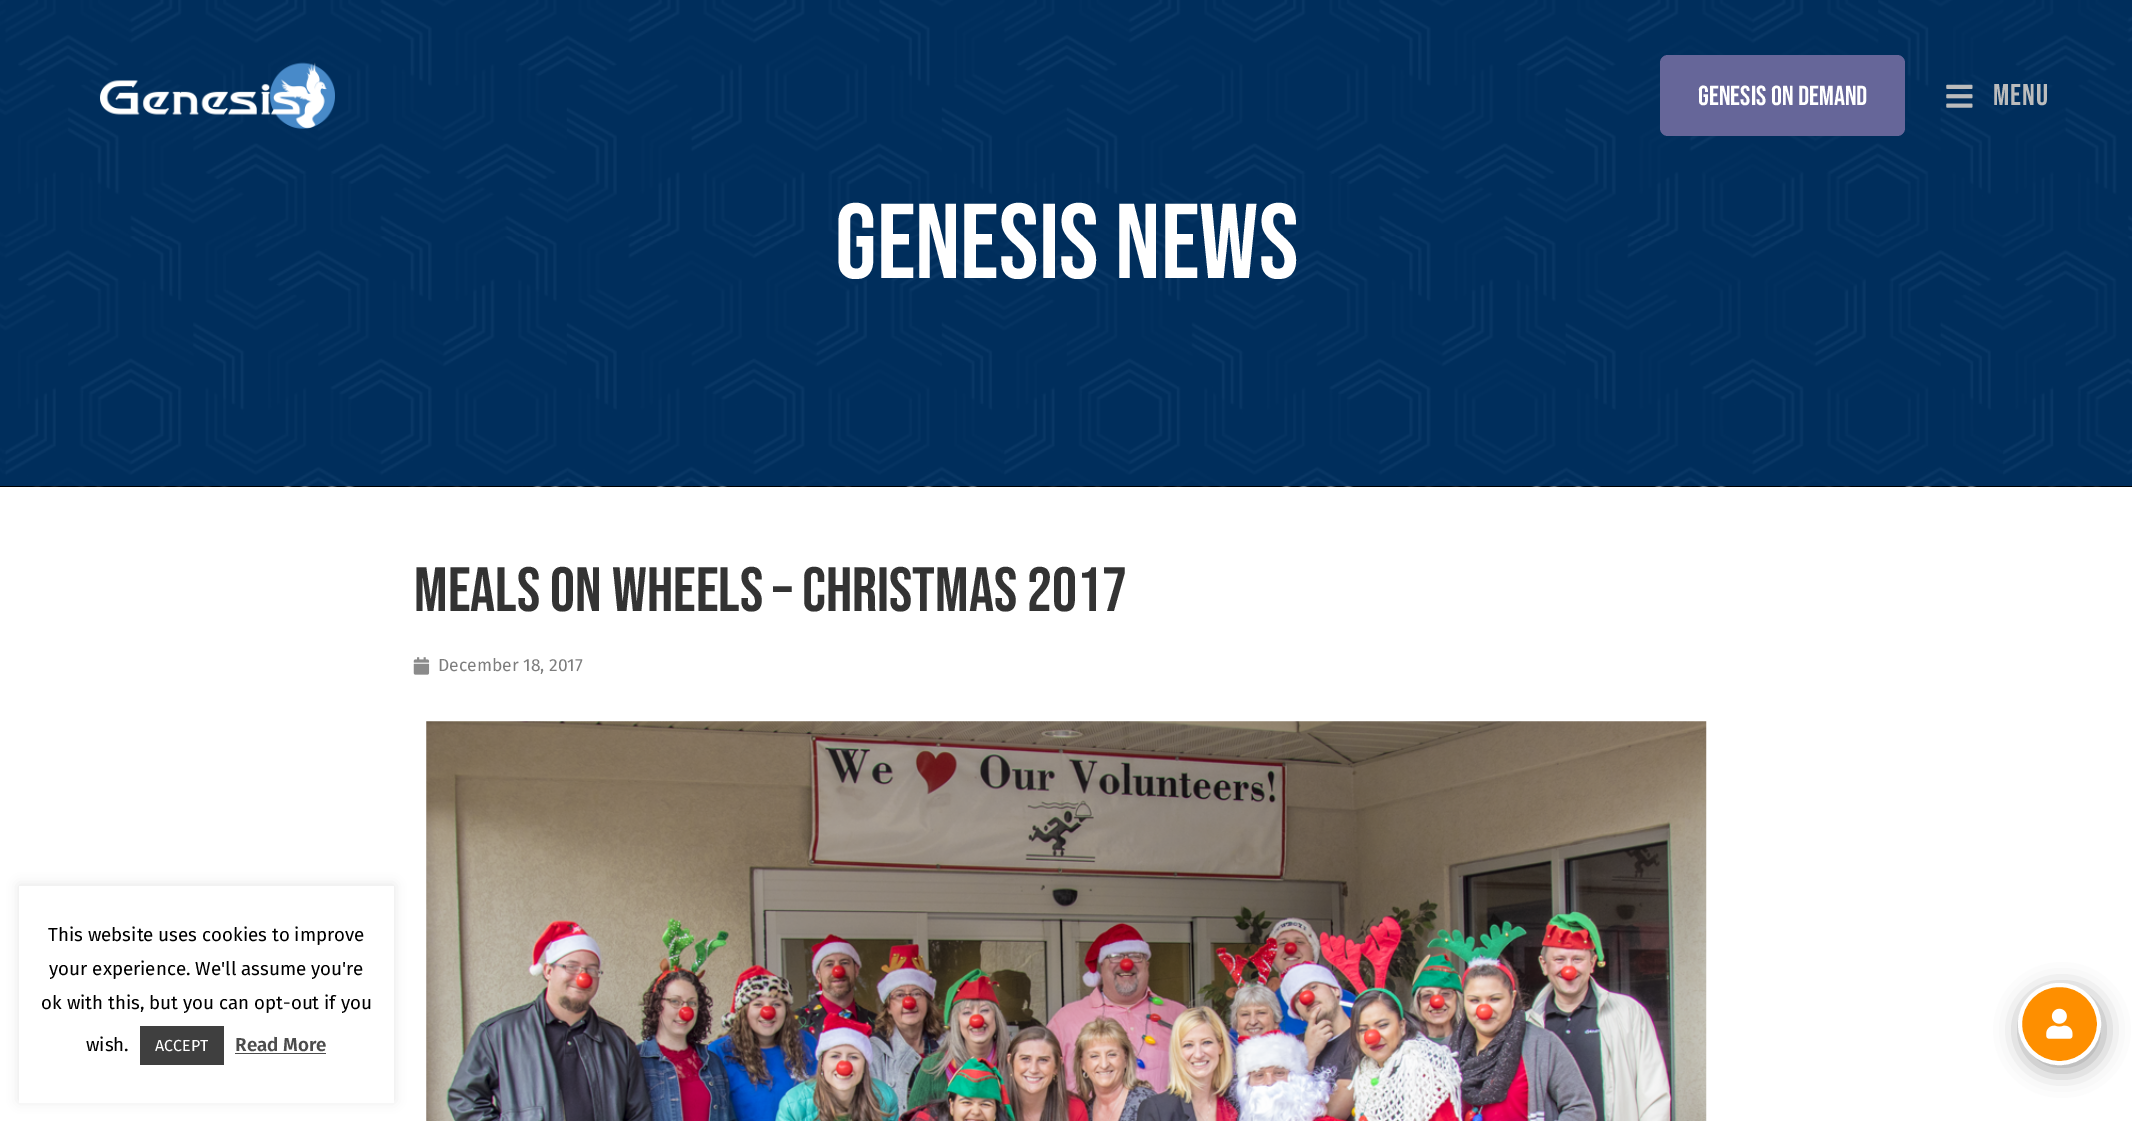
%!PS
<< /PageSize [2132 1121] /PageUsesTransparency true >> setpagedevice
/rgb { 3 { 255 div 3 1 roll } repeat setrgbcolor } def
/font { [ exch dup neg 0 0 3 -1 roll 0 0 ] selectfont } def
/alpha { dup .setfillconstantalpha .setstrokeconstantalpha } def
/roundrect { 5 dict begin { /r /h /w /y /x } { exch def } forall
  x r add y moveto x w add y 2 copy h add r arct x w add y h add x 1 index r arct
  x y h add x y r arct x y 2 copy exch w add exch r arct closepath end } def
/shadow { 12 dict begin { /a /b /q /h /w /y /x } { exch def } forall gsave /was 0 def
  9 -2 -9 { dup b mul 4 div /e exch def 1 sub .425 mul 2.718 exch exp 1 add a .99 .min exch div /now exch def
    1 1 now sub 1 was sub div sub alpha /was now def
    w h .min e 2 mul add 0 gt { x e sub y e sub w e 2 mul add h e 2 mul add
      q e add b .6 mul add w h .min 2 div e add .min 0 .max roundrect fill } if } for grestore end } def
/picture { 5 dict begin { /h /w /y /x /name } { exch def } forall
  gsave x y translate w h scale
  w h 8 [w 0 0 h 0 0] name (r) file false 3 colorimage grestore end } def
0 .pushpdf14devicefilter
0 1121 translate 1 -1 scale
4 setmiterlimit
255 255 255 rgb
0 0 2132 1121 rectfill
(img/4.rgb) 0 0 2132 487 picture
(img/1.rgb) 100 62 235 67 picture
102 102 153 rgb
1660 55 245 81 8 roundrect fill
(img/2.rgb) 1946 84 27 24 picture
74 74 74 rgb
2020 989 84 82 41 12 0.5 shadow
254 143 0 rgb
2020 985 79 78 39 roundrect gsave fill grestore
255 255 255 rgb
4 setlinewidth
stroke
(img/3.rgb) 2046 1008 27 31 picture
(img/5.rgb) 413 657 17 18 picture
(img/6.rgb) 426 721 1281 400 picture
172 171 171 rgb
19 885 375 216 0 6 0.3 shadow
[
  [19 886 375 217 255 255 255]
  [140 1026 84 39 63 63 63]
  [235 1053 91 1 76 76 76]
] { aload pop rgb rectfill } forall
/BebasNeue-Regular 27.5 font
255 255 255 rgb
1698 105 moveto (Genesis On Demand) show
/BebasNeue-Regular 30 font
188 188 188 rgb
1993 105 moveto 1 0 (MENU) ashow
/BebasNeue-Regular 106.25 font
255 255 255 rgb
835 278 moveto (Genesis News) show
/BebasNeue-Regular 62.5 font
51 51 51 rgb
414 611 moveto (Meals on Wheels – Christmas 2017) show
/FiraSans-Regular 17.5 font
125 125 125 rgb
438 671 moveto (December 18, 2017) show
/FiraSans-Regular 18.75 font
0 0 0 rgb
[
  [(This website uses cookies to improve) 48 941]
  [(your experience. We'll assume you're) 49 975]
  [(ok with this, but you can opt-out if you) 41 1009]
  [(wish.) 86 1051]
] { aload pop moveto show } forall
/FiraSans-Regular 16 font
255 255 255 rgb
155 1051 moveto (ACCEPT) show
/FiraSans-SemiBold 18.75 font
76 76 76 rgb
235 1051 moveto (Read More) show
.poppdf14devicefilter showpage
